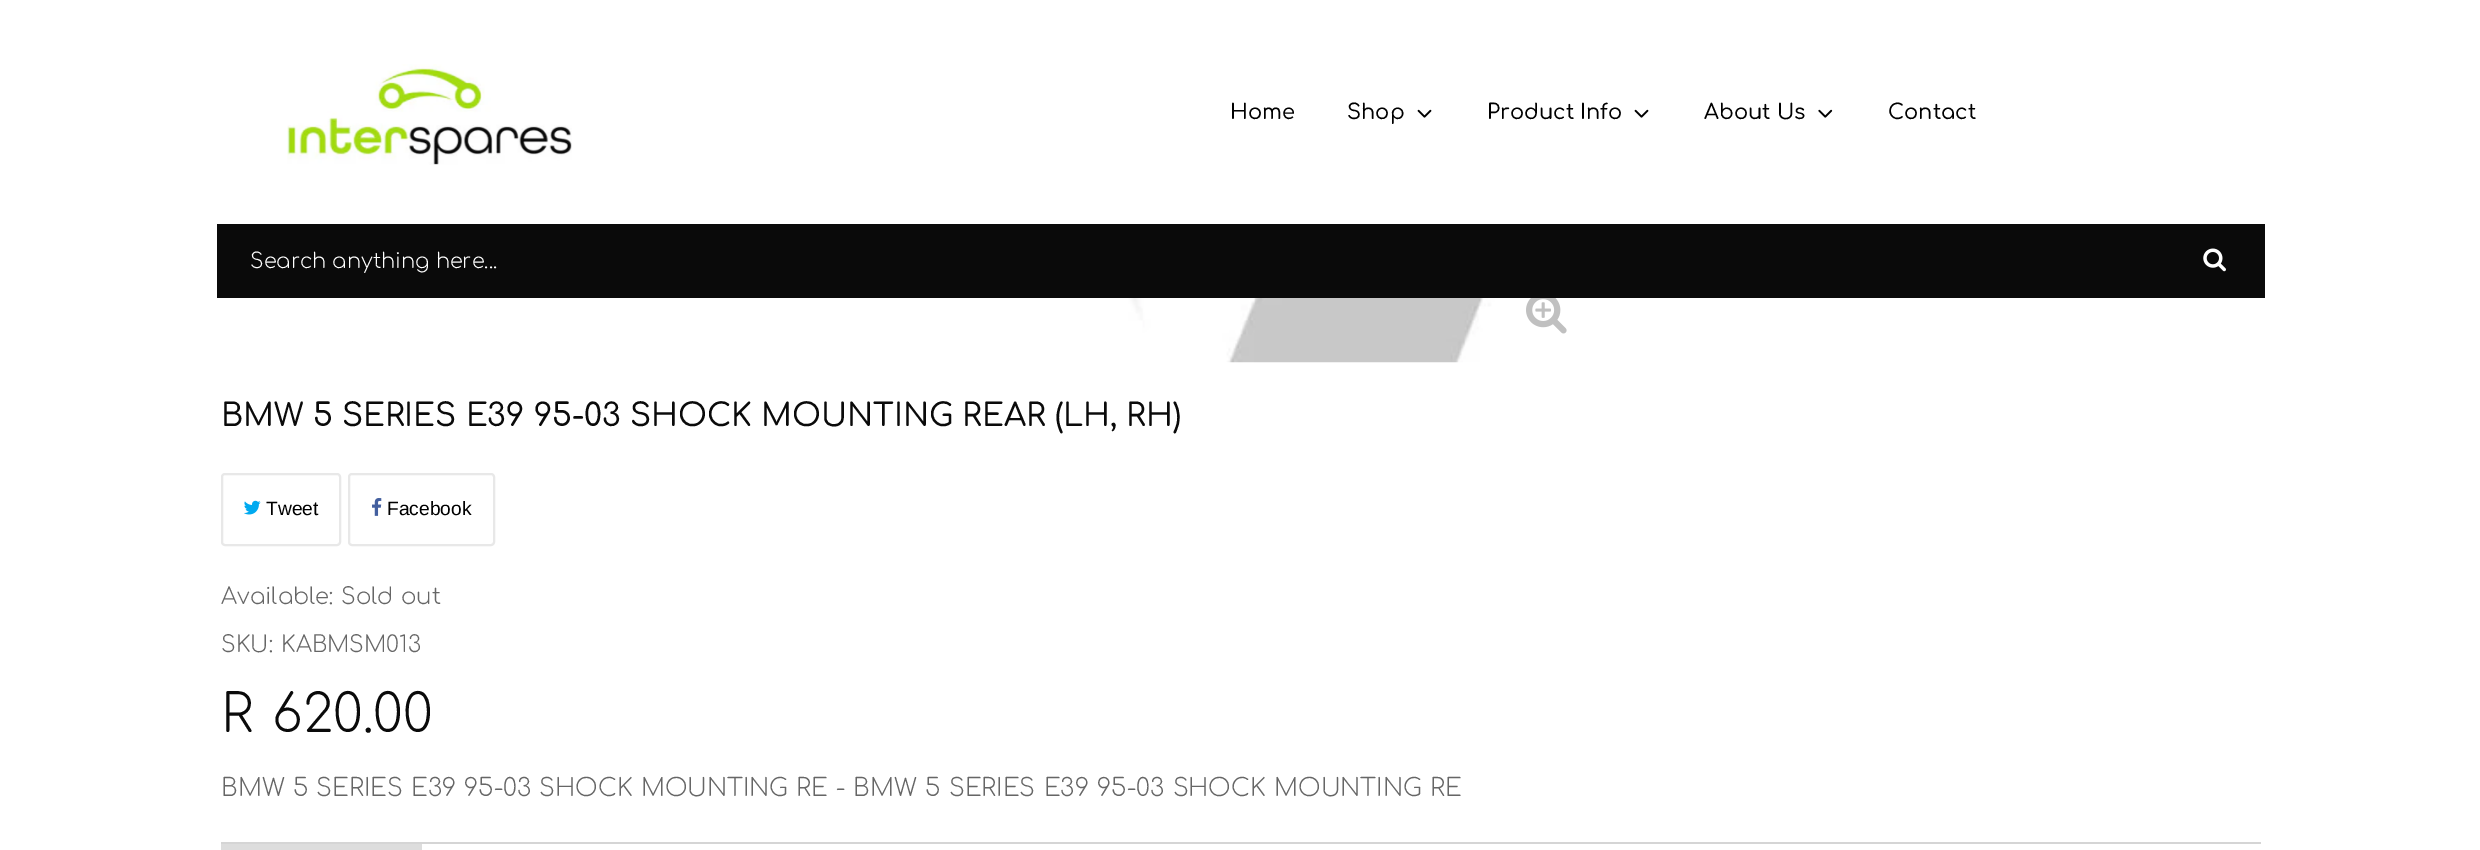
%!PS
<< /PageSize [2480 850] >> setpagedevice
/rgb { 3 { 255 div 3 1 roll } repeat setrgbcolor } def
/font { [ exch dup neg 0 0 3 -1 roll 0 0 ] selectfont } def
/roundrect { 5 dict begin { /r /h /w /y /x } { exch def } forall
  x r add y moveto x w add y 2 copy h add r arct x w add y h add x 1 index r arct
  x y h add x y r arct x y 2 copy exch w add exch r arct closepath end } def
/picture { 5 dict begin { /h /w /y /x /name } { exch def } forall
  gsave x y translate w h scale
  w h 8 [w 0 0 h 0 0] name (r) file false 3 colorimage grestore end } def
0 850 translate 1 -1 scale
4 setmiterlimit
255 255 255 rgb
0 0 2480 850 rectfill
(img/1.rgb) 287 64 285 101 picture
(img/2.rgb) 1417 109 15 9 picture
(img/2.rgb) 1634 109 15 9 picture
(img/3.rgb) 1818 109 15 9 picture
10 10 10 rgb
217 224 2048 74 rectfill
(img/4.rgb) 2203 248 23 24 picture
(img/5.rgb) 890 298 701 65 picture
(img/6.rgb) 1526 298 41 36 picture
232 232 232 rgb
2 setlinewidth
222 474 118 71 3 roundrect stroke
(img/7.rgb) 244 500 17 15 picture
349 474 145 71 3 roundrect stroke
(img/8.rgb) 372 498 10 18 picture
213 213 213 rgb
221 842 2040 2 rectfill
221 221 221 rgb
221 844 201 6 rectfill
/Comfortaa-Medium 21 font
0 0 0 rgb
[
  [(Home) 1230 119]
  [(Shop) 1347 119]
  [(Product Info) 1487 119]
  [(About Us) 1704 119]
  [(Contact) 1888 119]
] { aload pop moveto show } forall
/Comfortaa-Light 21 font
255 255 255 rgb
250 268 moveto (Search anything here...) show
/Comfortaa-Medium 31.5 font
10 10 10 rgb
221 426 moveto (BMW 5 SERIES E39 95-03 SHOCK MOUNTING REAR \(LH, RH\)) show
/LiberationSans-Regular 19.25 font
0 0 0 rgb
266 515 moveto (Tweet) show
387 515 moveto (Facebook) show
/Comfortaa-Light 22.75 font
102 102 102 rgb
221 604 moveto (Available:) show
341 604 moveto 1 0 32 (Sold out) widthshow
221 652 moveto (SKU:) show
281 652 moveto (KABMSM013) show
/Comfortaa-Light 52.5 font
10 10 10 rgb
221 732 moveto 4 0 32 (R 620.00) widthshow
/Comfortaa-Light 24.5 font
102 102 102 rgb
221 796 moveto 1 0 32 (BMW 5 SERIES E39 95-03 SHOCK MOUNTING RE) widthshow
836 796 moveto (-) show
853 796 moveto 1.25 0 32 (BMW 5 SERIES E39 95-03 SHOCK MOUNTING RE) widthshow
showpage
